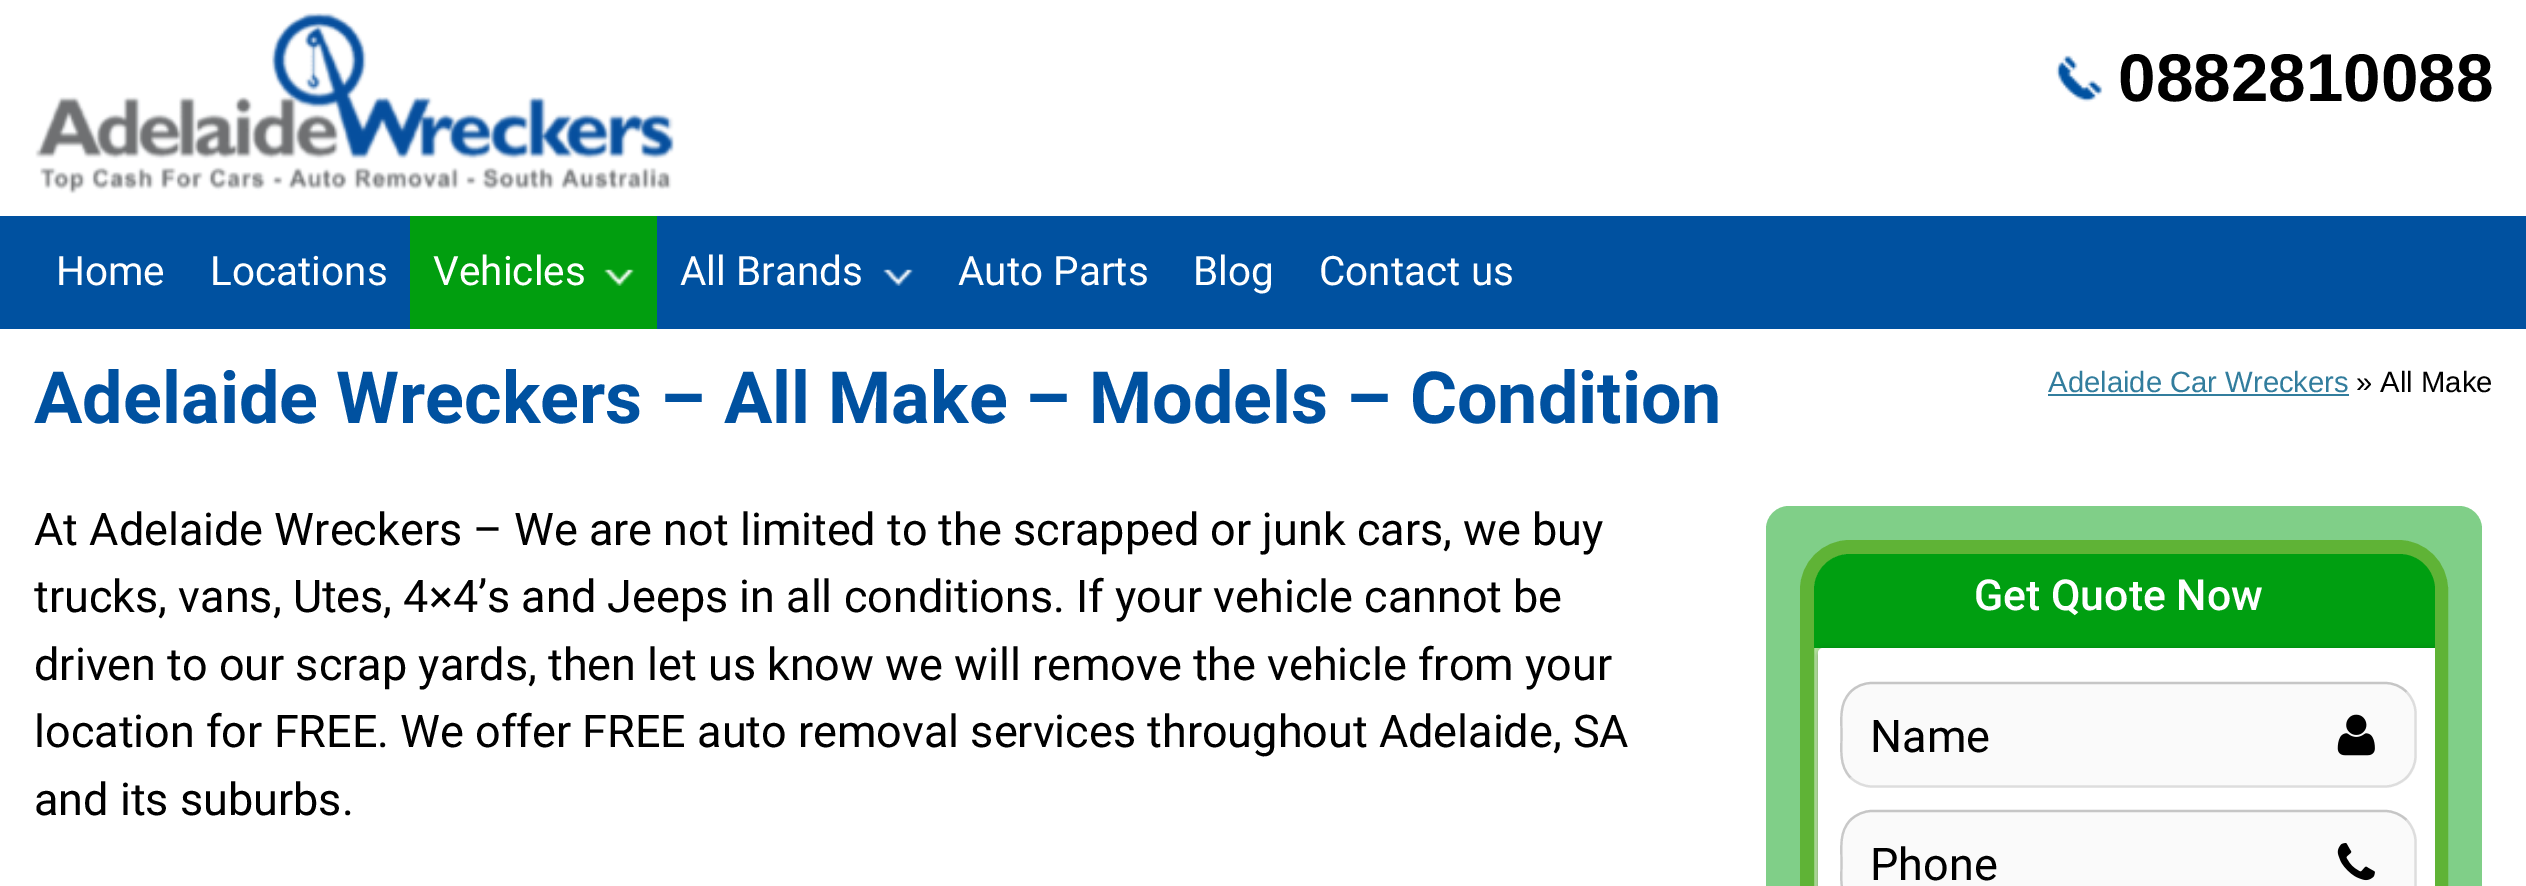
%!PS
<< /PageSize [2526 886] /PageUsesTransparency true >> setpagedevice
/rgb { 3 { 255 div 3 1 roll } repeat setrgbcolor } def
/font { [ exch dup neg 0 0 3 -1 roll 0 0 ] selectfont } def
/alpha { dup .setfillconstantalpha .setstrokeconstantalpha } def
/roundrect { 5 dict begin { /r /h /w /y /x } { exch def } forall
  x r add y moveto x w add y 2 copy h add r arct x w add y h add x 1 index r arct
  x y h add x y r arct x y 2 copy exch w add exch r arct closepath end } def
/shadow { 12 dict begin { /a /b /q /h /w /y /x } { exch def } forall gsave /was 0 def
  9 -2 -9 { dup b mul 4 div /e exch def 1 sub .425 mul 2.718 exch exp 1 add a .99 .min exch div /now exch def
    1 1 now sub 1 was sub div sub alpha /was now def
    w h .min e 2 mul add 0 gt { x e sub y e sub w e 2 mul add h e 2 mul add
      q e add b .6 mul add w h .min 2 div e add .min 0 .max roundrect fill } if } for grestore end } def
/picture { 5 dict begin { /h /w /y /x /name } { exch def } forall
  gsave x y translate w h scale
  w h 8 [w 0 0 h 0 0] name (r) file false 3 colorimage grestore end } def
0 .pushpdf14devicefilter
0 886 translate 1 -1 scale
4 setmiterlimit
255 255 255 rgb
0 0 2526 886 rectfill
(img/1.rgb) 35 13 640 181 picture
(img/2.rgb) 2056 55 47 47 picture
0 81 160 rgb
0 216 2526 113 rectfill
1 158 15 rgb
410 216 247 113 rectfill
(img/3.rgb) 604 269 31 17 picture
(img/4.rgb) 883 269 31 17 picture
50 125 157 rgb
2048 394 301 2 rectfill
128 207 136 rgb
1766 506 716 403 23 roundrect fill
183 230 161 rgb
1807 547 634 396 43 roundrect gsave fill grestore
95 179 54 rgb
14 setlinewidth
stroke
0 159 17 rgb
1850 554 moveto 2399 554 lineto 2419 554 2435 570 2435 590 curveto 2435 648 lineto 1814 648 lineto 1814 590 lineto 1814 570 1830 554 1850 554 curveto closepath fill
gsave
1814 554 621 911 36 roundrect clip newpath
0 0 0 rgb
1818 650 621 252 5 3.5 0.3 shadow
grestore
gsave
1814 554 621 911 36 roundrect clip newpath
255 255 255 rgb
1818 648 621 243 5 roundrect fill
grestore
250 250 250 rgb
1841 682 576 106 32 roundrect fill
198 198 198 rgb
2.2 setlinewidth
1850.5 692 moveto 1856 686 1864 683 1872 683 curveto 2385 683 lineto 2393 683 2401 686 2406.5 692 curveto stroke
221 221 221 rgb
2406.5 692 moveto 2412 697.5 2415.5 705 2415.5 713 curveto 2415.5 756 lineto 2415.5 764 2412 772 2406.5 777.5 curveto 2401 783 2393 786.5 2385 786.5 curveto 1872 786.5 lineto 1864 786.5 1856 783 1850.5 777.5 curveto stroke
201 201 201 rgb
1850.5 777.5 moveto 1839 766 1841.5 749.5 1841.5 734.5 curveto 1841.5 719.5 1839 703.5 1850.5 692 curveto stroke
(img/5.rgb) 2337 714 38 42 picture
250 250 250 rgb
1841 810 576 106 32 roundrect fill
198 198 198 rgb
1850.5 820 moveto 1856 814.5 1864 811 1872 811 curveto 2385 811 lineto 2393 811 2401 814.5 2406.5 820 curveto stroke
221 221 221 rgb
2406.5 820 moveto 2412 825.5 2415.5 833.5 2415.5 841.5 curveto 2415.5 884 lineto 2415.5 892.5 2412 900 2406.5 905.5 curveto 2401 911.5 2393 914.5 2385 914.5 curveto 1872 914.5 lineto 1864 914.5 1856 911.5 1850.5 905.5 curveto stroke
201 201 201 rgb
1850.5 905.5 moveto 1839 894 1841.5 878 1841.5 863 curveto 1841.5 848 1839 831.5 1850.5 820 curveto stroke
(img/6.rgb) 2337 843 38 38 picture
/LiberationSans-Bold 67.5 font
0 0 0 rgb
2118 101 moveto (0882810088) show
/Roboto-Regular 40.5 font
255 255 255 rgb
[
  [(Home) 56 285]
  [(Locations) 210 285]
  [(Vehicles) 433 285]
  [(All Brands) 680 285]
  [(Auto Parts) 958 285]
  [(Blog) 1193 285]
  [(Contact us) 1319 285]
] { aload pop moveto show } forall
/Roboto-Bold 72 font
0 81 160 rgb
34 423 moveto (Adelaide Wreckers – All Make – Models – Condition) show
/LiberationSans-Regular 29.25 font
50 125 157 rgb
2048 392 moveto (Adelaide Car Wreckers) show
0 0 0 rgb
2356 392 moveto (» All Make) show
/Roboto-Regular 45 font
[
  [(At Adelaide Wreckers – We are not limited to the scrapped or junk cars, we buy) 34 545]
  [(trucks, vans, Utes, 4×4’s and Jeeps in all conditions. If your vehicle cannot be) 34 612]
  [(driven to our scrap yards, then let us know we will remove the vehicle from your) 34 680]
  [(location for FREE. We offer FREE auto removal services throughout Adelaide, SA) 34 747]
  [(and its suburbs.) 34 815]
] { aload pop moveto show } forall
/Roboto-Medium 42.75 font
255 255 255 rgb
1974 610 moveto (Get Quote Now) show
/Roboto-Regular 45 font
0 0 0 rgb
1870 752 moveto (Name) show
1870 880 moveto (Phone) show
.poppdf14devicefilter showpage
